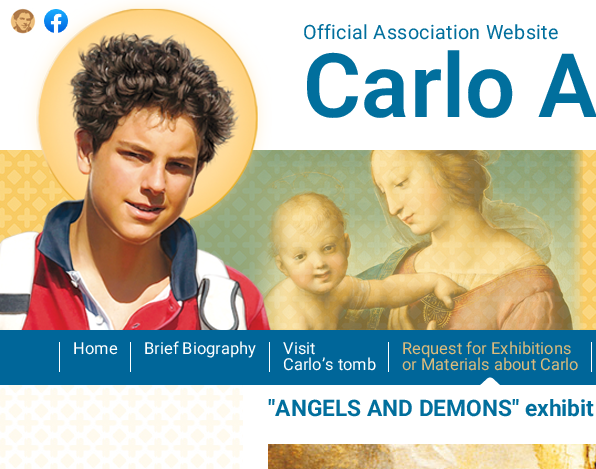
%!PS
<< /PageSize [596 469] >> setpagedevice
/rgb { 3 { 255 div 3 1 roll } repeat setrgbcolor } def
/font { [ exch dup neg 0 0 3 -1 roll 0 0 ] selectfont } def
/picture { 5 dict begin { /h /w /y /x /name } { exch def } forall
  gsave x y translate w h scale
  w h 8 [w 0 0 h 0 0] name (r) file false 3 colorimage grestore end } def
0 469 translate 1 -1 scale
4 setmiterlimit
255 255 255 rgb
0 0 596 469 rectfill
(img/4.rgb) 0 150 596 180 picture
(img/5.rgb) 190 150 393 180 picture
(img/1.rgb) 0 0 272 330 picture
(img/2.rgb) 10 8 26 26 picture
(img/3.rgb) 44 9 24 24 picture
[
  [0 330 596 55 0 102 153]
  [130 342 1 30 255 255 255]
  [59 342 1 30 255 255 255]
  [269 342 1 30 255 255 255]
  [388 342 1 30 255 255 255]
  [591 342 1 30 255 255 255]
] { aload pop rgb rectfill } forall
(img/6.rgb) 480 377 20 8 picture
(img/7.rgb) 0 385 243 84 picture
(img/8.rgb) 268 444 328 25 picture
/Roboto-Regular 19.75 font
1 111 157 rgb
303 39 moveto 0.3 0 (Official Association Website) ashow
/Roboto-SemiBold 89 font
303 117 moveto 0.3 0 (Carlo A) ashow
/Roboto-Regular 16.5 font
255 255 255 rgb
[
  [(Home) 73 354]
  [(Brief Biography) 144 354]
  [(Visit) 283 354]
  [(Carlo’s tomb) 283 370]
] { aload pop moveto show } forall
219 187 124 rgb
402 354 moveto (Request for Exhibitions) show
402 370 moveto (or Materials about Carlo) show
/Roboto-Bold 22.75 font
1 111 157 rgb
268 416 moveto ("ANGELS AND DEMONS" exhibit) show
showpage
